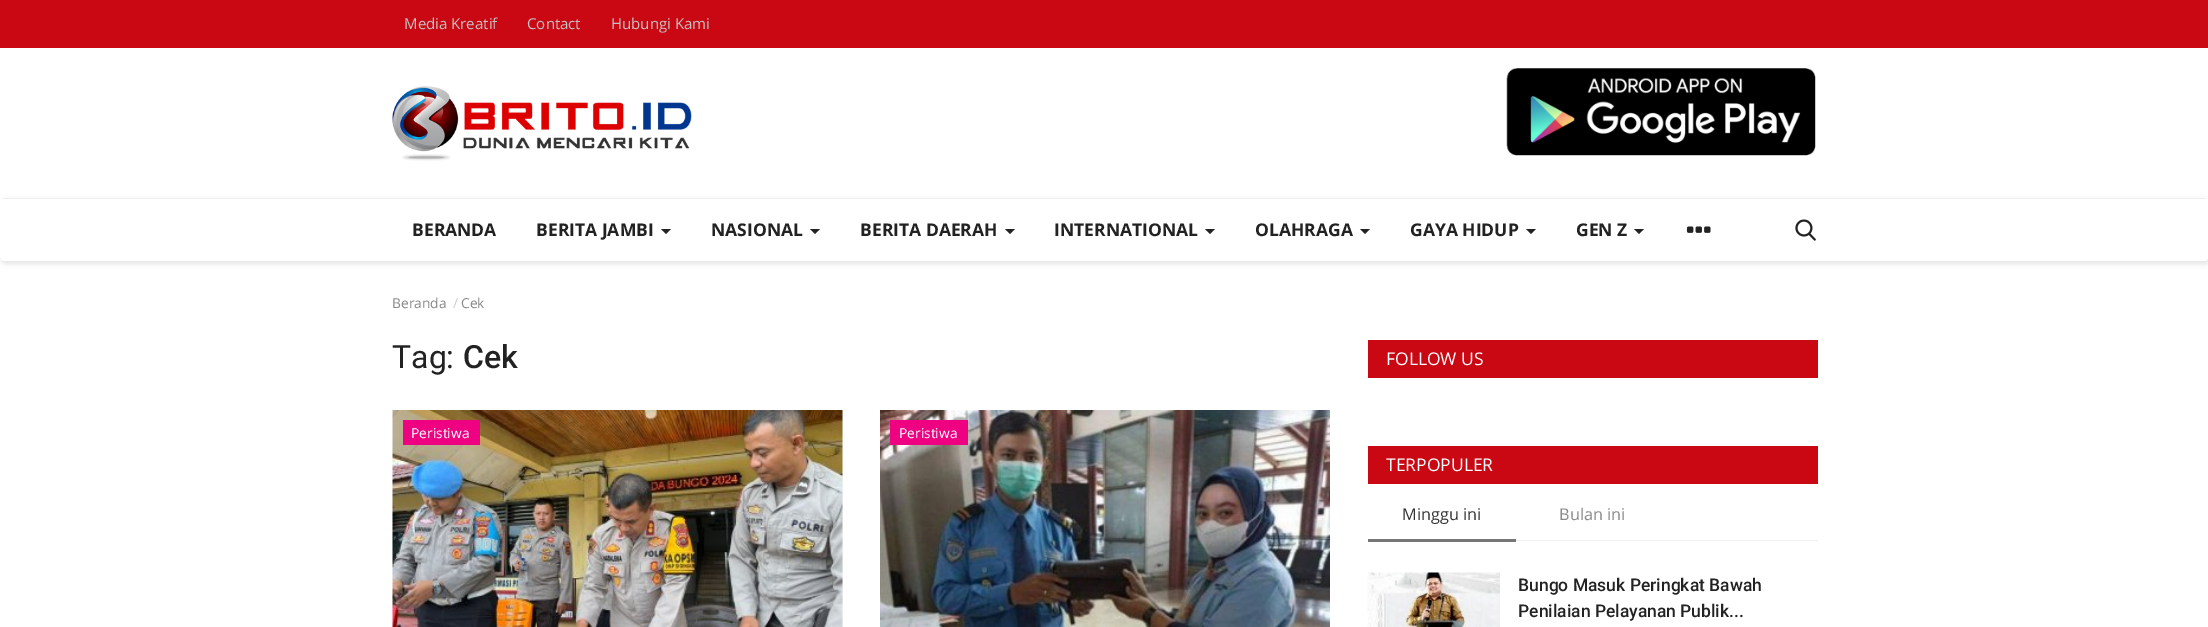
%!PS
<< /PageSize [2208 627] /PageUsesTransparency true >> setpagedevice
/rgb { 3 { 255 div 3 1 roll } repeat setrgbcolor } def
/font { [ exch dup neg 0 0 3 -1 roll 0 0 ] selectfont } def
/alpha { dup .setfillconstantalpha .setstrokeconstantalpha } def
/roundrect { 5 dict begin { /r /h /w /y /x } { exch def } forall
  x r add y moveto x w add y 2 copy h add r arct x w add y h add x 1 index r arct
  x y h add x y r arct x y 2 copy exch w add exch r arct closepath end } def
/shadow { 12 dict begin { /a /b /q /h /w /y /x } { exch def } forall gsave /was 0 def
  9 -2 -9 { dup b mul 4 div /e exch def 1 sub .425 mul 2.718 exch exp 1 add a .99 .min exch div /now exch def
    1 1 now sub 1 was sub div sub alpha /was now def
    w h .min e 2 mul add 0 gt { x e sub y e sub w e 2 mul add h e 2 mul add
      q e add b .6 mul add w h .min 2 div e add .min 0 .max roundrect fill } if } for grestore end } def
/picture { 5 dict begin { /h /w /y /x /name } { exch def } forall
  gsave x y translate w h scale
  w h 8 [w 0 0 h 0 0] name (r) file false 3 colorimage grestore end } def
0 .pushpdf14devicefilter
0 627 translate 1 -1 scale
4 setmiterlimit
255 255 255 rgb
0 0 2208 627 rectfill
201 8 19 rgb
0 0 2208 48 rectfill
(img/1.rgb) 392 86 300 75 picture
(img/2.rgb) 1506 68 310 88 picture
0 0 0 rgb
1 200 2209 64 5 2.5 0.1 shadow
255 255 255 rgb
0 198 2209 63 5 roundrect fill
238 238 238 rgb
3 198 2203 1 rectfill
34 34 34 rgb
661 229 moveto 671 229 lineto 666 234 lineto closepath fill
810 229 moveto 820 229 lineto 815 234 lineto closepath fill
1005 229 moveto 1015 229 lineto 1010 234 lineto closepath fill
1205 229 moveto 1215 229 lineto 1210 234 lineto closepath fill
1360 229 moveto 1370 229 lineto 1365 234 lineto closepath fill
1526 229 moveto 1536 229 lineto 1531 234 lineto closepath fill
1634 229 moveto 1644 229 lineto 1639 234 lineto closepath fill
(img/3.rgb) 1686 226 25 7 picture
(img/4.rgb) 1795 219 21 22 picture
250 250 250 rgb
842 410 1 217 rectfill
(img/5.rgb) 392 410 451 217 picture
239 2 129 rgb
403 420 77 25 rectfill
(img/6.rgb) 880 410 450 217 picture
[
  [890 420 78 25 239 2 129]
  [1368 340 450 38 201 8 19]
  [1368 446 450 38 201 8 19]
  [1516 540 302 1 238 238 238]
  [1368 539 148 3 119 119 119]
] { aload pop rgb rectfill } forall
(img/7.rgb) 1367 572 133 55 picture
/OpenSans-Regular 15 font
196 196 196 rgb
[
  [(Media Kreatif) 404 29]
  [(Contact) 527 29]
  [(Hubungi Kami) 611 29]
] { aload pop moveto show } forall
/OpenSans-Bold 17.5 font
34 34 34 rgb
[
  [(BERANDA) 412 236]
  [(BERITA JAMBI) 536 236]
  [(NASIONAL) 711 236]
  [(BERITA DAERAH) 860 236]
  [(INTERNATIONAL) 1054 236]
  [(OLAHRAGA) 1255 236]
  [(GAYA HIDUP) 1410 236]
  [(GEN Z) 1576 236]
] { aload pop moveto show } forall
/OpenSans-Regular 13.75 font
136 136 136 rgb
392 308 moveto (Beranda) show
204 204 204 rgb
453 308 moveto (/) show
136 136 136 rgb
461 308 moveto (Cek) show
/Roboto-Regular 32 font
34 34 34 rgb
392 368 moveto (Tag:) show
/Roboto-Medium 32 font
463 368 moveto (Cek) show
/OpenSans-Regular 13.75 font
255 255 255 rgb
411 438 moveto (Peristiwa) show
899 438 moveto (Peristiwa) show
/OpenSans-Regular 17.5 font
1386 365 moveto (FOLLOW US) show
1386 471 moveto (TERPOPULER) show
/OpenSans-Regular 16.25 font
51 51 51 rgb
1402 520 moveto (Minggu ini) show
136 136 136 rgb
1559 520 moveto (Bulan ini) show
/Roboto-Medium 17.5 font
34 34 34 rgb
1518 591 moveto (Bungo Masuk Peringkat Bawah) show
1518 617 moveto (Penilaian Pelayanan Publik...) show
.poppdf14devicefilter showpage
